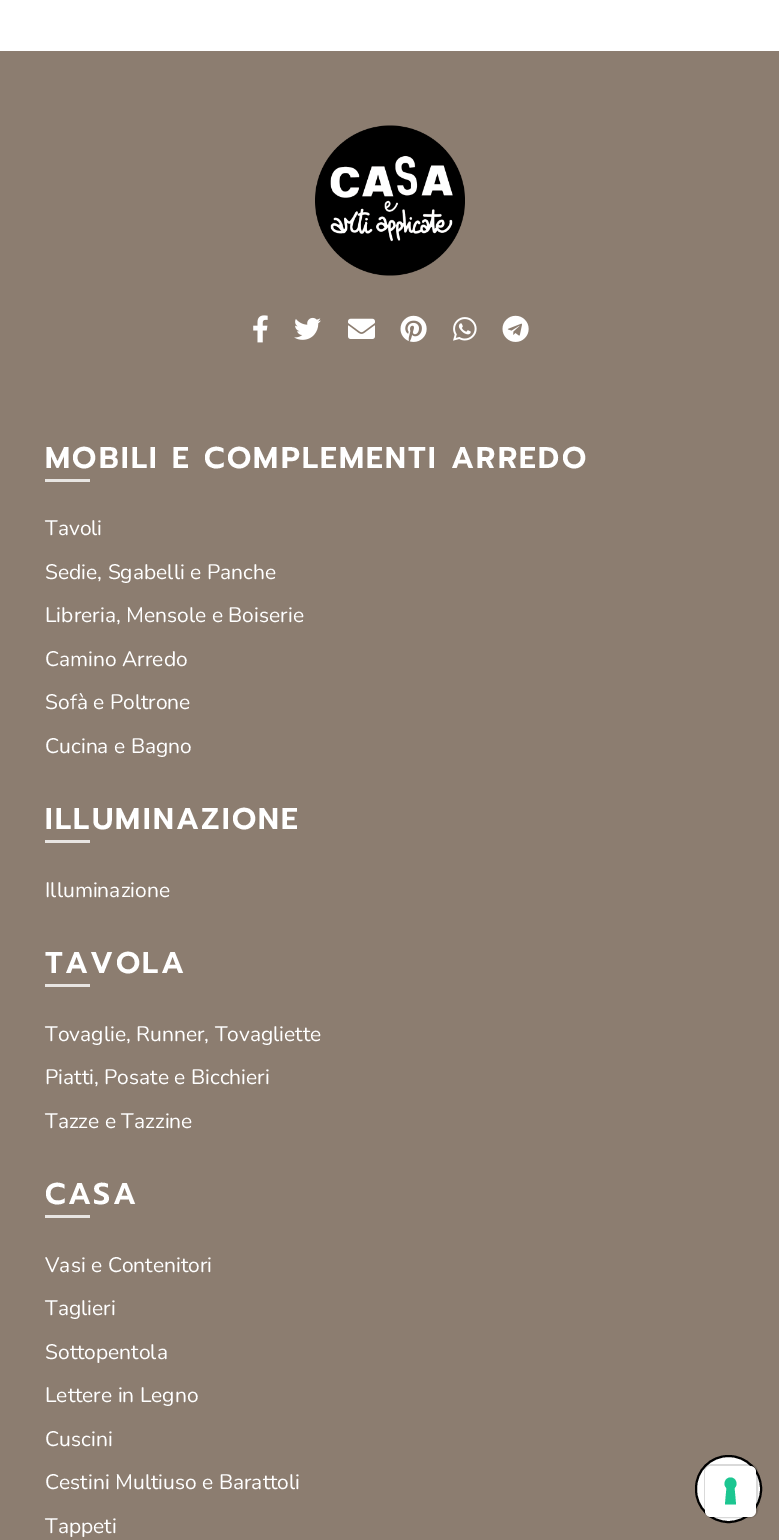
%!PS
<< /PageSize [779 1540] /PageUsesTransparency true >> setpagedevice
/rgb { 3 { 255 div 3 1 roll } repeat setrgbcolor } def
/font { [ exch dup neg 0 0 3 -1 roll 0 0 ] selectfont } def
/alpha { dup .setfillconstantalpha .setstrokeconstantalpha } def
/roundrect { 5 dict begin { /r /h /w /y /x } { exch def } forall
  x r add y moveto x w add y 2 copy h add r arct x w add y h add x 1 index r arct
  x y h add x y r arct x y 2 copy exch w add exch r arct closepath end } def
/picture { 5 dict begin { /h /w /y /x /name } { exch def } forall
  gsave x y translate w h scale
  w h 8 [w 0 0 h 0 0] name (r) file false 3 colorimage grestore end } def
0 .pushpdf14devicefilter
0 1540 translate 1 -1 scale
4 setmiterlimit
255 255 255 rgb
0 0 779 1540 rectfill
140 125 112 rgb
0 51 779 1489 rectfill
(img/1.rgb) 315 125 150 151 picture
(img/2.rgb) 253 315 15 28 picture
(img/3.rgb) 294 317 27 23 picture
(img/4.rgb) 348 318 27 21 picture
(img/5.rgb) 400 315 27 27 picture
(img/6.rgb) 453 317 24 24 picture
(img/7.rgb) 502 315 27 27 picture
[
  [45 479 45 3 232 229 226]
  [45 840 45 3 232 229 226]
  [45 984 45 3 232 229 226]
  [45 1215 45 3 232 229 226]
] { aload pop rgb rectfill } forall
255 255 255 rgb
696 1456 65 66 32.5 roundrect gsave fill grestore
0 0 0 rgb
2 setlinewidth
stroke
0.15 alpha
705 1465 52 52 7 roundrect stroke
1 alpha
255 255 255 rgb
705 1466 51 51 6 roundrect fill
28 198 145 rgb
730.5 1477.5 moveto 736 1477.5 738.5 1484.5 734.5 1488 curveto 736 1504.5 lineto 725 1504.5 lineto 726.5 1488 lineto 722.5 1484.5 725 1477.5 730.5 1477.5 curveto closepath eofill
/Prompt-SemiBold 30 font
255 255 255 rgb
45 468 moveto 2.25 0 (MOBILI E COMPLEMENTI ARREDO) ashow
/Nunito-Regular 21 font
[
  [(Tavoli) 45 535]
  [(Sedie, Sgabelli e Panche) 45 579]
  [(Libreria, Mensole e Boiserie) 45 622]
  [(Camino Arredo) 45 666]
  [(Sofà e Poltrone) 45 709]
  [(Cucina e Bagno) 45 753]
] { aload pop moveto show } forall
/Prompt-SemiBold 30 font
45 829 moveto 2.25 0 (ILLUMINAZIONE) ashow
/Nunito-Regular 21 font
45 897 moveto (Illuminazione) show
/Prompt-SemiBold 30 font
45 973 moveto 2.25 0 (TAVOLA) ashow
/Nunito-Regular 21 font
[
  [(Tovaglie, Runner, Tovagliette) 45 1041]
  [(Piatti, Posate e Bicchieri) 45 1084]
  [(Tazze e Tazzine) 45 1128]
] { aload pop moveto show } forall
/Prompt-SemiBold 30 font
45 1204 moveto 2.25 0 (CASA) ashow
/Nunito-Regular 21 font
[
  [(Vasi e Contenitori) 45 1272]
  [(Taglieri) 45 1315]
  [(Sottopentola) 45 1359]
  [(Lettere in Legno) 45 1402]
  [(Cuscini) 45 1446]
  [(Cestini Multiuso e Barattoli) 45 1489]
  [(Tappeti) 45 1533]
] { aload pop moveto show } forall
.poppdf14devicefilter showpage
